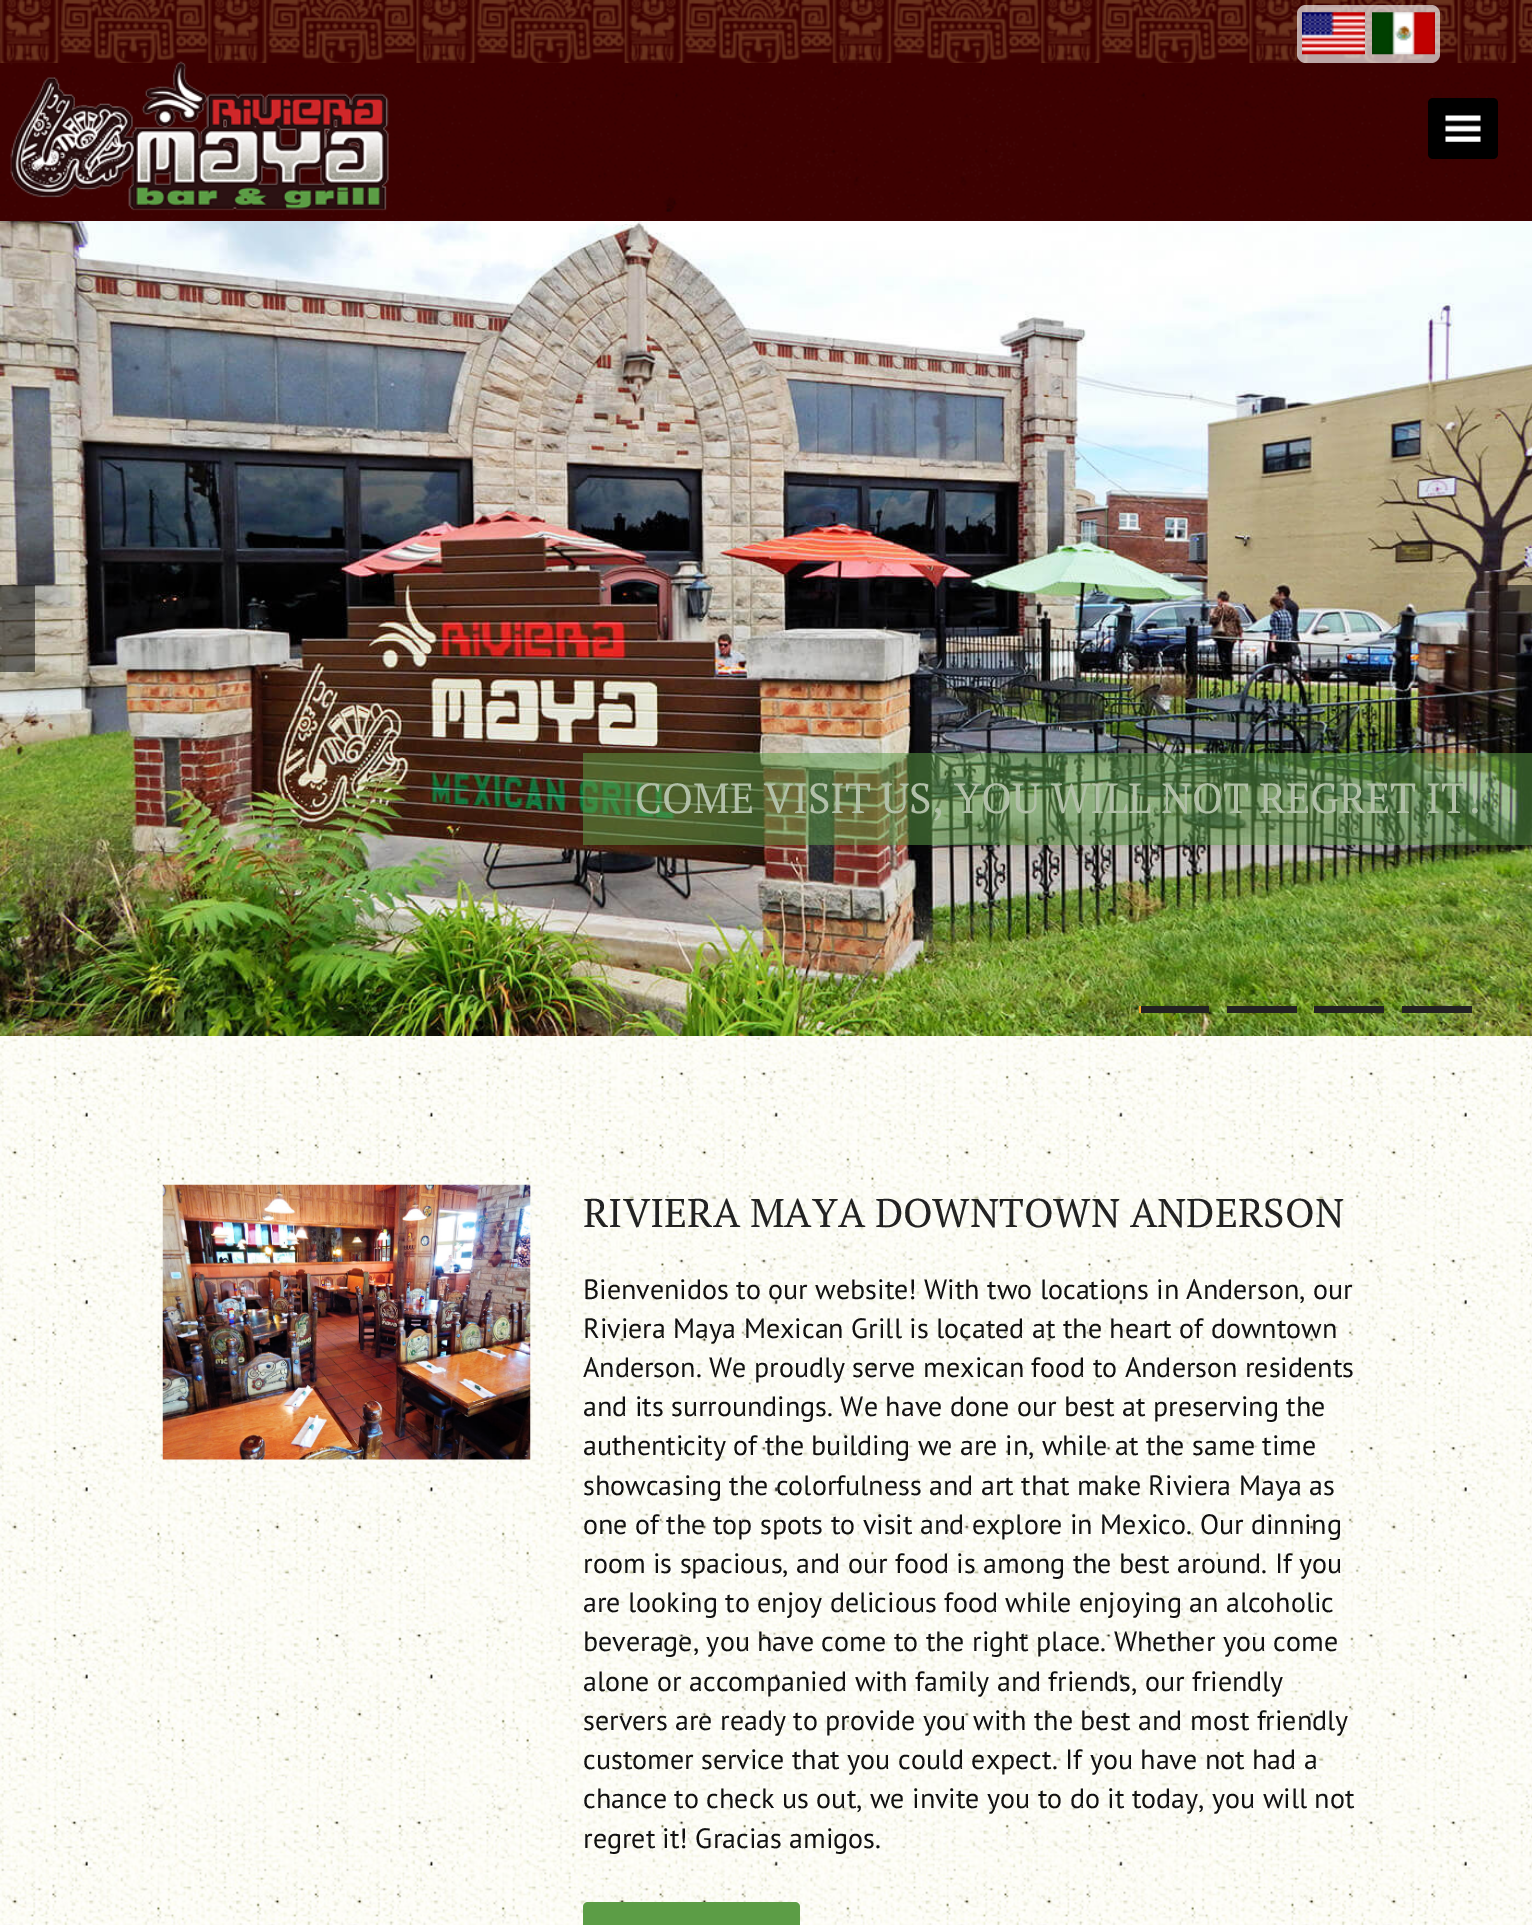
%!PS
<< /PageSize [1532 1925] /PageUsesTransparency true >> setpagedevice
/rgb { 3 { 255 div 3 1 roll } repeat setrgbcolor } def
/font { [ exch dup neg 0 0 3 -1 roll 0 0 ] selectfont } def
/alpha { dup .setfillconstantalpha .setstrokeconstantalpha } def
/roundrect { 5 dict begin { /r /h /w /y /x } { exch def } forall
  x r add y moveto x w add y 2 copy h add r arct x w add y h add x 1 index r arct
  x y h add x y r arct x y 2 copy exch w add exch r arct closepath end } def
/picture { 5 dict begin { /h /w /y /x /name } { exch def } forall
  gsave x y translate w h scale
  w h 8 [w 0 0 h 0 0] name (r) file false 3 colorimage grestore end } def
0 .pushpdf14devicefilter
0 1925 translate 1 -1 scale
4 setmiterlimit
255 255 255 rgb
0 0 1532 1925 rectfill
(img/1.rgb) 0 1036 1532 889 picture
61 1 1 rgb
0 0 1532 221 rectfill
(img/2.rgb) 0 0 1532 63 picture
0.65 alpha
255 255 255 rgb
1297 5 143 58 9 roundrect fill
1 alpha
(img/3.rgb) 1302 12 63 43 picture
(img/4.rgb) 1372 12 63 43 picture
(img/7.rgb) 0 63 1532 157 picture
(img/5.rgb) 10 61 379 150 picture
0 0 0 rgb
1428 98 70 61 5 roundrect fill
(img/6.rgb) 1445 115 36 27 picture
(img/9.rgb) 0 221 1532 815 picture
0.5 alpha
0 585 35 87 rectfill
1 alpha
(img/8.rgb) 0 607 2 43 picture
0.5 alpha
[
  [1498 585 34 87 0 0 0]
] { aload pop rgb rectfill } forall
0.52 alpha
[
  [583 753 949 92 92 157 70]
] { aload pop rgb rectfill } forall
1 alpha
[
  [1139 1006 70 7 34 34 34]
  [1139 1006 2 7 250 166 38]
  [1227 1006 70 7 34 34 34]
  [1314 1006 70 7 34 34 34]
  [1402 1006 70 7 34 34 34]
] { aload pop rgb rectfill } forall
(img/10.rgb) 162 1184 369 276 picture
92 157 70 rgb
583 1902 217 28 5 roundrect fill
/PTSerif-Regular 42 font
178 192 169 rgb
635 813 moveto (COME VISIT US, YOU WILL NOT REGRET IT!) show
/PTSerif-Regular 40 font
34 34 34 rgb
583 1227 moveto (RIVIERA MAYA DOWNTOWN ANDERSON) show
/PTSans-Regular 28 font
17 17 17 rgb
[
  [(Bienvenidos to our website! With two locations in Anderson, our) 583 1299]
  [(Riviera Maya Mexican Grill is located at the heart of downtown) 583 1338]
  [(Anderson. We proudly serve mexican food to Anderson residents) 583 1377]
  [(and its surroundings. We have done our best at preserving the) 583 1416]
  [(authenticity of the building we are in, while at the same time) 583 1455]
  [(showcasing the colorfulness and art that make Riviera Maya as) 583 1495]
  [(one of the top spots to visit and explore in Mexico. Our dinning) 583 1534]
  [(room is spacious, and our food is among the best around. If you) 583 1573]
  [(are looking to enjoy delicious food while enjoying an alcoholic) 583 1612]
  [(beverage, you have come to the right place. Whether you come) 583 1651]
  [(alone or accompanied with family and friends, our friendly) 583 1691]
  [(servers are ready to provide you with the best and most friendly) 583 1730]
  [(customer service that you could expect. If you have not had a) 583 1769]
  [(chance to check us out, we invite you to do it today, you will not) 583 1808]
  [(regret it! Gracias amigos.) 583 1848]
] { aload pop moveto show } forall
.poppdf14devicefilter showpage
